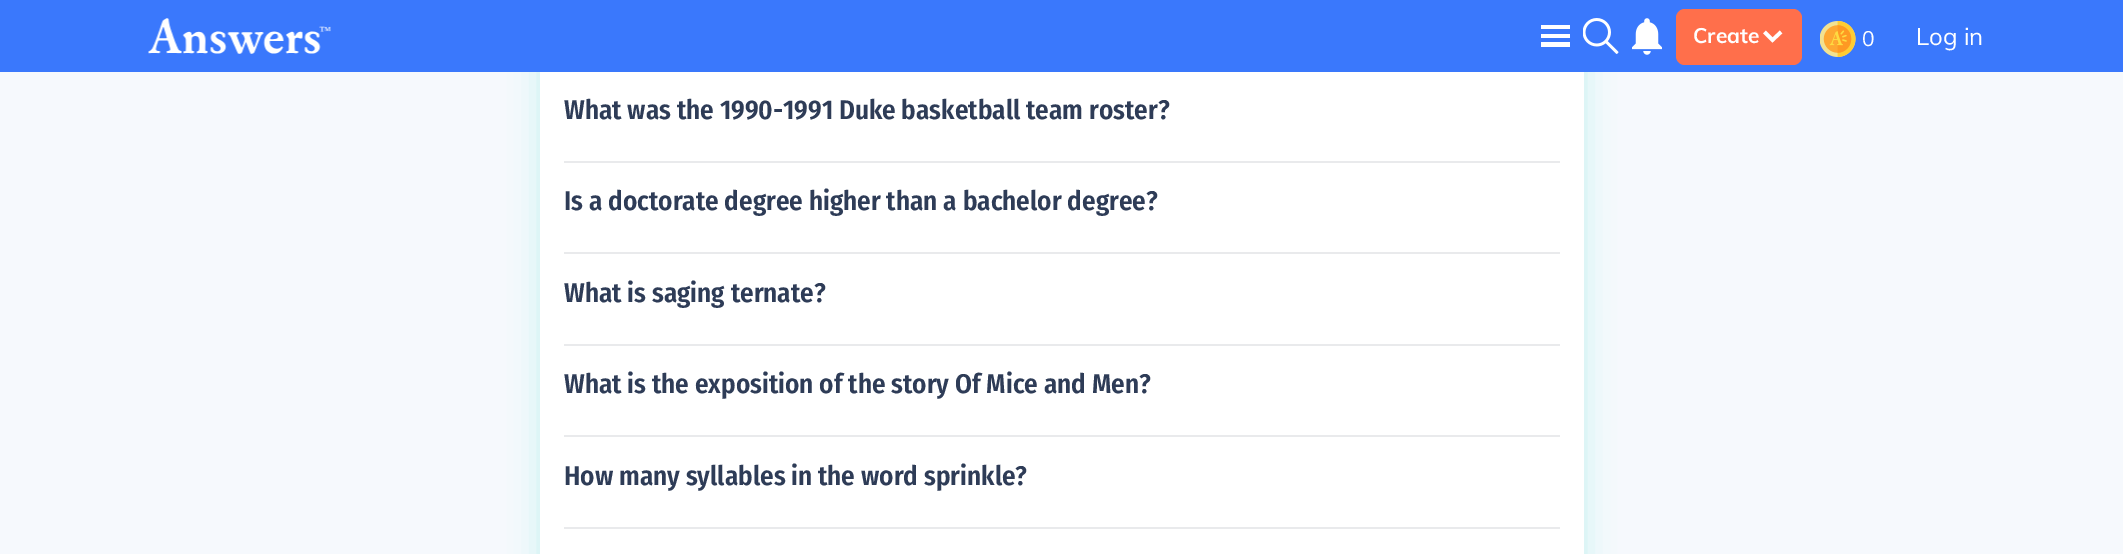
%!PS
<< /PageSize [2123 554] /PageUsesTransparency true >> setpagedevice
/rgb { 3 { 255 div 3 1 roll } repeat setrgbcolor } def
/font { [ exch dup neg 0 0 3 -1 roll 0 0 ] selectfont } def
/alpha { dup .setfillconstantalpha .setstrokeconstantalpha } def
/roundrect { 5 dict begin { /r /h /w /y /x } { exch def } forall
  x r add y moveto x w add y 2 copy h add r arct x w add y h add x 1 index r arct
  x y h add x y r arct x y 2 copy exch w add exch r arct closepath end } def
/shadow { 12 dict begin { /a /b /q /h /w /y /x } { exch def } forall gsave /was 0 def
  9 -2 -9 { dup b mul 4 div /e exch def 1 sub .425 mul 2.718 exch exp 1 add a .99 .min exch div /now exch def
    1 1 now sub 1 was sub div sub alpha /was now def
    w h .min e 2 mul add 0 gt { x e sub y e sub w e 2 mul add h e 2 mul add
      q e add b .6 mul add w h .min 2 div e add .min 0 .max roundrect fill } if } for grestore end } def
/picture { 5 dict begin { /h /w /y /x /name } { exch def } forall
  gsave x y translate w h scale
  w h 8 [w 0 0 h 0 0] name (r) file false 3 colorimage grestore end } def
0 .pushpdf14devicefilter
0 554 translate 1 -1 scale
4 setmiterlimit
246 249 253 rgb
0 0 2123 554 rectfill
0 205 189 rgb
540 -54 1044 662 9 15 0.2 shadow
58 120 252 rgb
0 0 2123 72 rectfill
(img/1.rgb) 148 18 183 36 picture
[
  [1541 25 29 4 255 255 255]
  [1541 34 29 4 255 255 255]
  [1541 42 29 5 255 255 255]
] { aload pop rgb rectfill } forall
(img/2.rgb) 1583 18 36 36 picture
(img/3.rgb) 1632 18 30 37 picture
255 111 75 rgb
1676 9 126 56 9 roundrect fill
255 255 255 rgb
3.6 setlinewidth
1764.5 32 moveto 1772.5 40 lineto 1781 32 lineto stroke
(img/4.rgb) 1820 21 36 36 picture
[
  [540 72 1044 482 255 255 255]
  [564 161 996 2 233 234 236]
  [564 252 996 2 233 234 236]
  [564 344 996 2 233 234 236]
  [564 435 996 2 233 234 236]
  [564 527 996 2 233 234 236]
] { aload pop rgb rectfill } forall
/Muli-Bold 21 font
255 255 255 rgb
1693 43 moveto (Create) show
/Muli-Regular 21 font
1862 46 moveto (0) show
/Muli-Regular 24 font
1916 45 moveto (Log in) show
/FiraSansCondensed-SemiBold 27 font
46 60 87 rgb
[
  [(What was the 1990-1991 Duke basketball team roster?) 564 119]
  [(Is a doctorate degree higher than a bachelor degree?) 564 210]
  [(What is saging ternate?) 564 302]
  [(What is the exposition of the story Of Mice and Men?) 564 393]
  [(How many syllables in the word sprinkle?) 564 485]
] { aload pop moveto show } forall
.poppdf14devicefilter showpage
